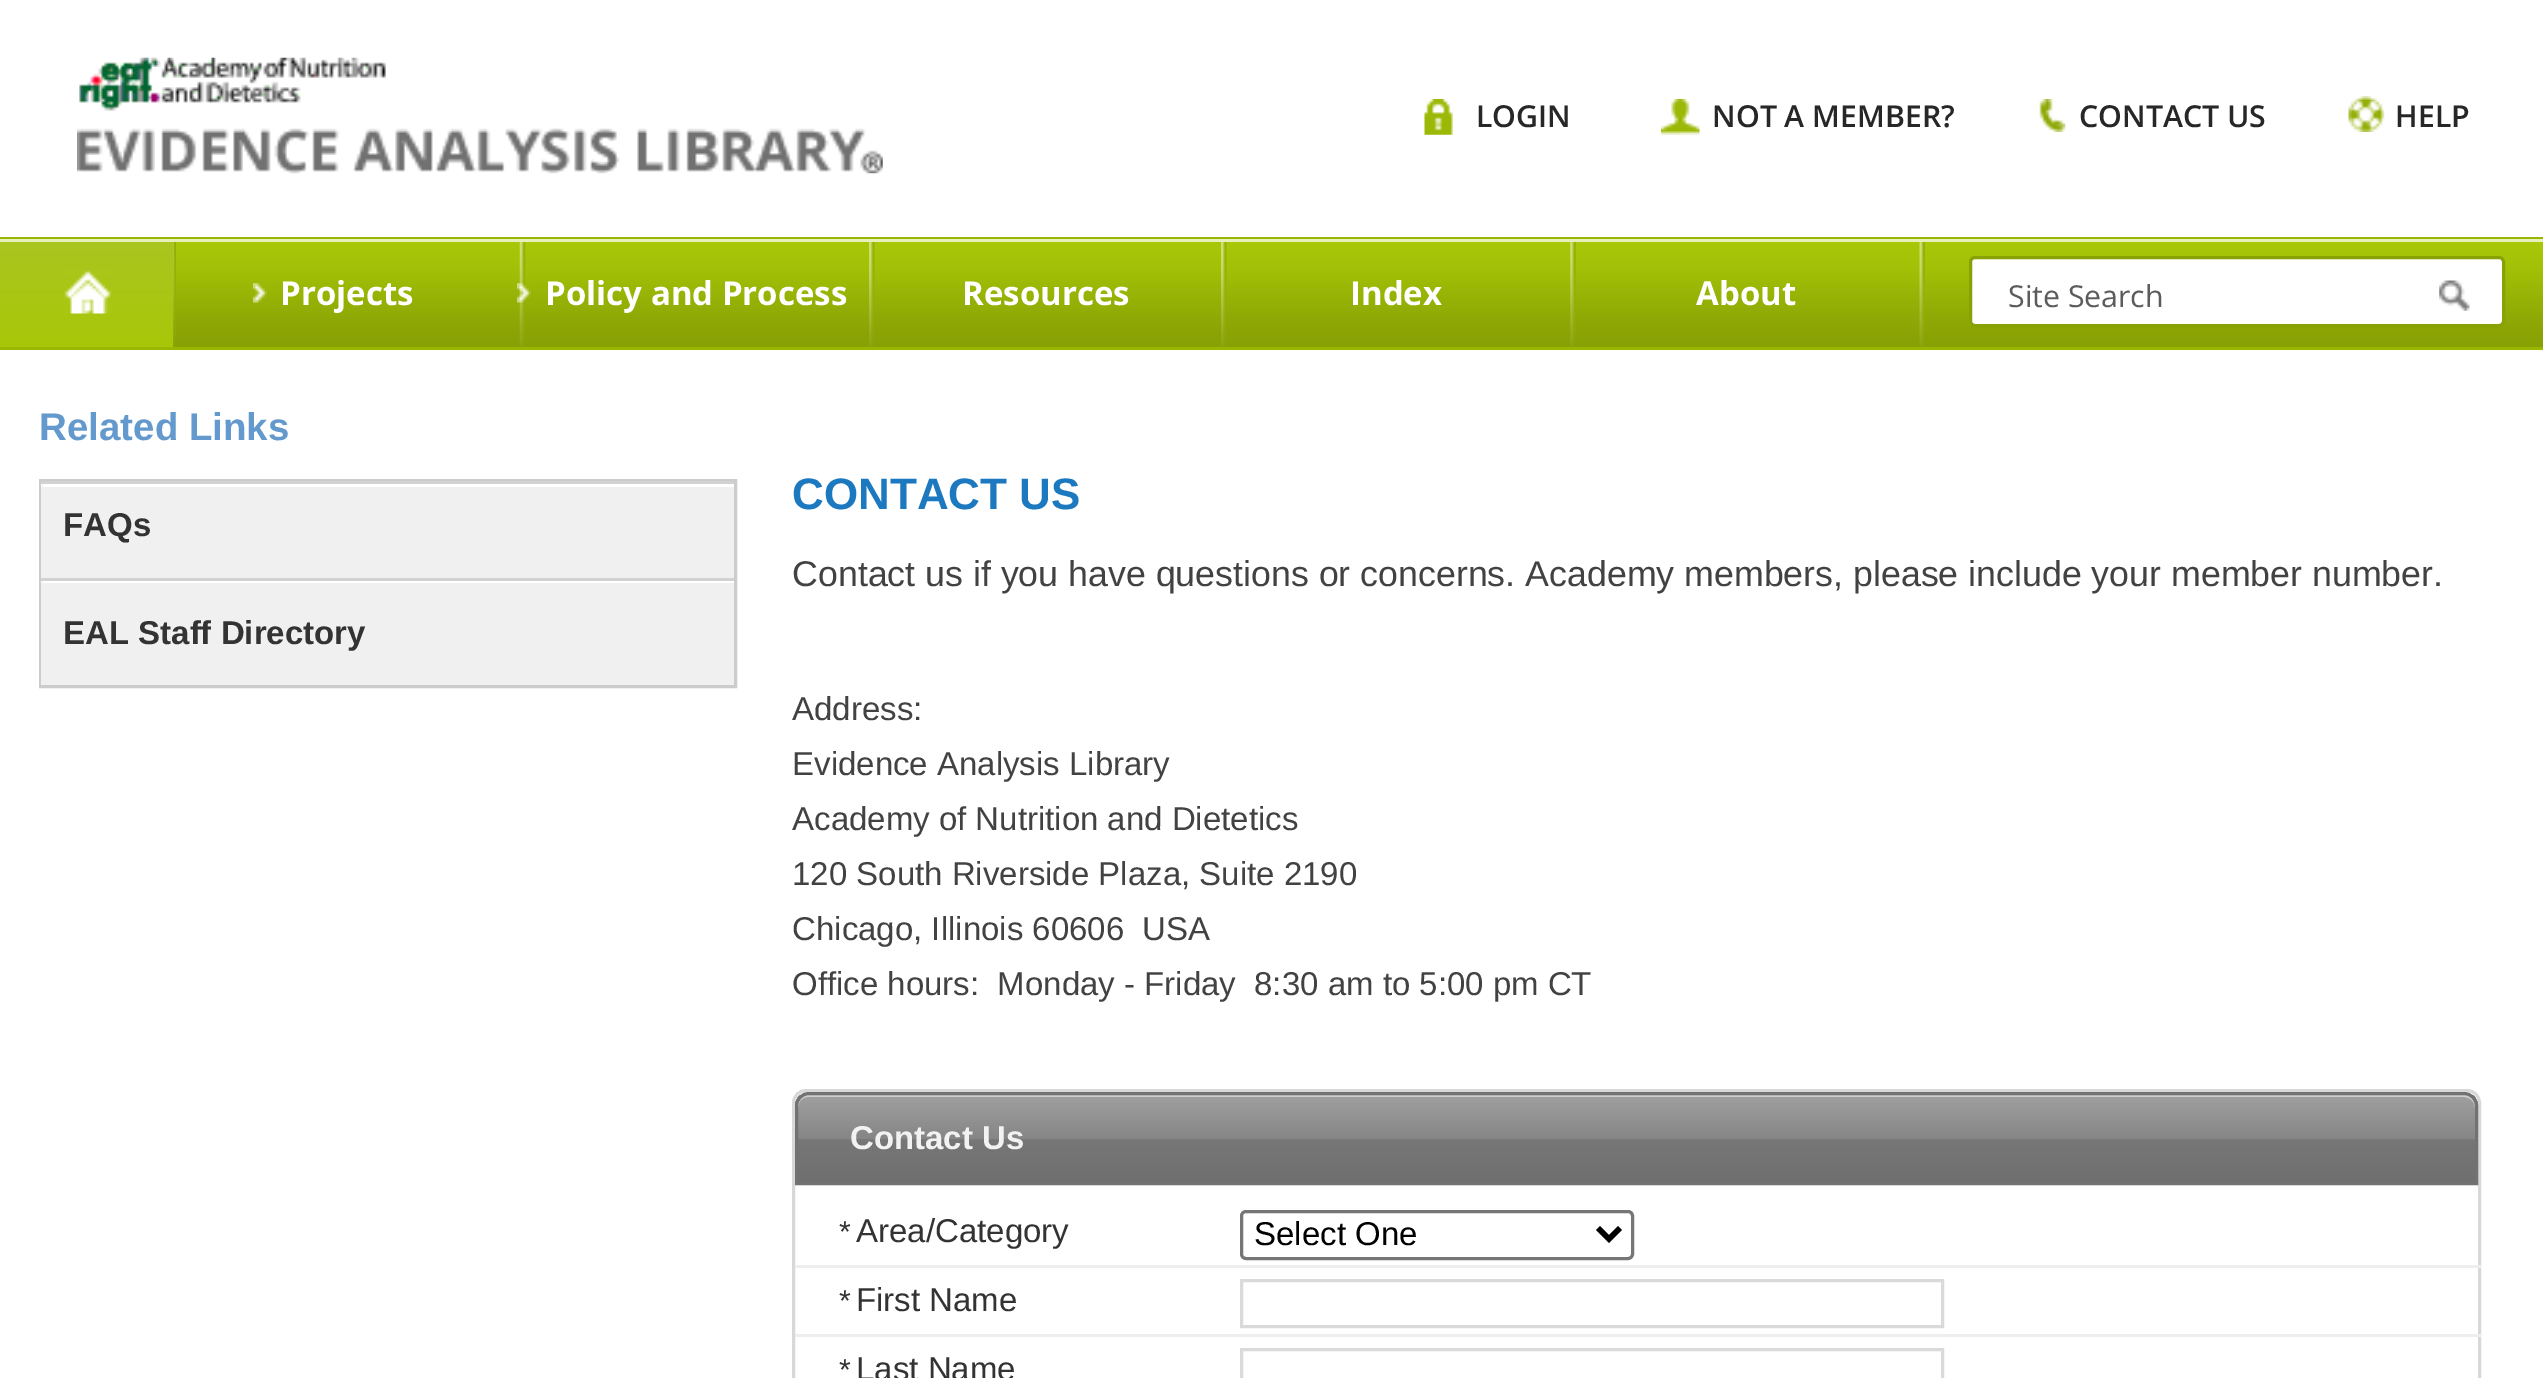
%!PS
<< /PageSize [2543 1378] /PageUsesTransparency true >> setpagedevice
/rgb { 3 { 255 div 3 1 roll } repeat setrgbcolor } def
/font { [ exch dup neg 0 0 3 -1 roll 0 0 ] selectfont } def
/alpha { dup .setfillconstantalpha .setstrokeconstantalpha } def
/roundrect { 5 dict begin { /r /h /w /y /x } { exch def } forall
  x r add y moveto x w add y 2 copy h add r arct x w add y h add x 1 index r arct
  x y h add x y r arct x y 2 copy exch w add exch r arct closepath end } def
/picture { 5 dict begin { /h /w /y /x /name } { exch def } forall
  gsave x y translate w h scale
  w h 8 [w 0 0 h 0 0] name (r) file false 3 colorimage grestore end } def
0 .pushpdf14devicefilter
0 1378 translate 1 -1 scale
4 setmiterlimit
255 255 255 rgb
0 0 2543 1378 rectfill
(img/1.rgb) 77 57 806 117 picture
153 182 0 rgb
0 237 moveto 0 239 lineto 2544 239 lineto 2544 347 lineto 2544 237 lineto closepath fill
gsave 173 242 moveto 2543 242 lineto 2543 347 lineto 173 347 lineto closepath clip newpath
<< /ShadingType 2 /ColorSpace /DeviceRGB /Coords [1272 242 1272 347] /Extend [true true] /Function << /FunctionType 3 /Domain [0 1] /Functions [<< /FunctionType 2 /Domain [0 1] /C0 [0.663 0.784 0.031] /C1 [0.639 0.757 0.027] /N 1 >> << /FunctionType 2 /Domain [0 1] /C0 [0.639 0.757 0.027] /C1 [0.565 0.667 0.02] /N 1 >> << /FunctionType 2 /Domain [0 1] /C0 [0.565 0.667 0.02] /C1 [0.529 0.627 0.016] /N 1 >>] /Bounds [0.24 0.7] /Encode [0 1 0 1 0 1] >> >> shfill grestore
231 240 186 rgb
0 239 2543 3 rectfill
153 182 0 rgb
0 347 2543 3 rectfill
(img/2.rgb) 1424 99 29 36 picture
(img/3.rgb) 1661 99 39 36 picture
(img/4.rgb) 2039 99 27 33 picture
(img/5.rgb) 2348 96 37 36 picture
gsave 0 242 moveto 173 242 lineto 173 347 lineto 0 347 lineto closepath clip newpath
<< /ShadingType 2 /ColorSpace /DeviceRGB /Coords [87 242 87 347] /Extend [true true] /Function << /FunctionType 2 /Domain [0 1] /C0 [0.667 0.773 0.125] /C1 [0.659 0.78 0.031] /N 1 >> >> shfill grestore
(img/6.rgb) 64 270 48 44 picture
(img/7.rgb) 173 242 3 105 picture
(img/8.rgb) 253 283 14 20 picture
(img/9.rgb) 519 242 7 105 picture
(img/10.rgb) 517 283 14 20 picture
(img/11.rgb) 869 242 6 105 picture
(img/11.rgb) 1221 242 6 105 picture
(img/12.rgb) 1570 242 6 105 picture
(img/13.rgb) 1919 242 6 105 picture
255 255 255 rgb
1970.5 257.5 533 68 4.5 roundrect gsave fill grestore
136 161 4 rgb
3 setlinewidth
stroke
(img/14.rgb) 2439 280 31 31 picture
204 204 204 rgb
40.5 480.5 695 206 rectstroke
[
  [41 487 693 91 241 240 240]
  [41 484 1 3 255 255 255]
  [41 481 693 3 210 210 210]
  [41 583 693 102 241 240 240]
  [41 581 1 2 255 255 255]
  [41 578 693 3 210 210 210]
] { aload pop rgb rectfill } forall
216 216 216 rgb
793.5 1090.5 1686 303 12.5 roundrect stroke
gsave
809 1092 moveto 2464 1092 lineto 2471.5 1092 2478 1098.5 2478 1106 curveto 2478 1185 lineto 795 1185 lineto 795 1106 lineto 795 1098.5 801.5 1092 809 1092 curveto closepath clip newpath
gsave 795 1095 moveto 2478 1095 lineto 2478 1182 lineto 795 1182 lineto closepath clip newpath
<< /ShadingType 2 /ColorSpace /DeviceRGB /Coords [1636 1094 1636 1183] /Extend [true true] /Function << /FunctionType 3 /Domain [0 1] /Functions [<< /FunctionType 2 /Domain [0 1] /C0 [0.631 0.631 0.631] /C1 [0.525 0.525 0.525] /N 1 >> << /FunctionType 2 /Domain [0 1] /C0 [0.525 0.525 0.525] /C1 [0.467 0.467 0.467] /N 1 >> << /FunctionType 2 /Domain [0 1] /C0 [0.467 0.467 0.467] /C1 [0.435 0.435 0.435] /N 1 >>] /Bounds [0.5 0.51] /Encode [0 1 0 1 0 1] >> >> shfill grestore
grestore
0.5 alpha
255 255 255 rgb
808 1097 moveto 2464 1097 lineto 2470 1097 2475 1102 2475 1108 curveto 2475 1106 lineto 2475 1100 2470 1095 2464 1095 curveto 809 1095 lineto 803 1095 798 1100 798 1106 curveto 798 1108 lineto 798 1102 802 1097 808 1097 curveto closepath fill
1 alpha
114 114 114 rgb
809 1093.5 moveto 2464 1093.5 lineto 2471 1093.5 2476.5 1099 2476.5 1106 curveto 2476.5 1183.5 lineto 796.5 1183.5 lineto 796.5 1106 lineto 796.5 1099 802 1093.5 809 1093.5 curveto closepath stroke
238 238 238 rgb
795 1265 1686 3 rectfill
118 118 118 rgb
1241.5 1211.5 391 47 4.5 roundrect stroke
0 0 0 rgb
5.5 setlinewidth
1598 1228 moveto 1609 1239 lineto 1620 1228 lineto stroke
238 238 238 rgb
795 1334 1686 3 rectfill
218 218 218 rgb
3 setlinewidth
1241.5 1280.5 701 46 rectstroke
1241.5 1349.5 701 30 rectstroke
/OpenSans-SemiBold 30.25 font
39 39 39 rgb
[
  [(LOGIN) 1476 127]
  [(NOT A MEMBER?) 1712 127]
  [(CONTACT US) 2079 127]
  [(HELP) 2395 127]
] { aload pop moveto show } forall
/OpenSans-Bold 33 font
255 255 255 rgb
[
  [(Projects) 280 305]
  [(Policy and Process) 545 305]
  [(Resources) 962 305]
  [(Index) 1350 305]
  [(About) 1696 305]
] { aload pop moveto show } forall
/OpenSans-Regular 30.25 font
92 92 92 rgb
2008 307 moveto (Site Search) show
/LiberationSans-Bold 38.5 font
99 153 205 rgb
39 440 moveto (Related Links) show
/LiberationSans-Bold 33 font
51 51 51 rgb
63 536 moveto (FAQs) show
63 644 moveto (EAL Staff Directory) show
/LiberationSans-Bold 44 font
29 121 191 rgb
792 509 moveto (CONTACT US) show
/LiberationSans-Regular 35.75 font
66 66 66 rgb
792 586 moveto (Contact us if you have questions or concerns. Academy members, please include your member number.) show
/LiberationSans-Regular 33 font
[
  [(Address:) 792 720]
  [(Evidence Analysis Library) 792 775]
  [(Academy of Nutrition and Dietetics) 792 830]
  [(120 South Riverside Plaza, Suite 2190) 792 885]
  [(Chicago, Illinois 60606  USA) 792 940]
  [(Office hours:  Monday - Friday  8:30 am to 5:00 pm CT) 792 995]
] { aload pop moveto show } forall
/LiberationSans-Bold 33 font
242 242 242 rgb
850 1149 moveto (Contact Us) show
/LiberationSans-Regular 30.25 font
51 51 51 rgb
839 1242 moveto (*) show
/LiberationSans-Regular 33 font
856 1242 moveto (Area/Category) show
0 0 0 rgb
1254 1245 moveto (Select One) show
/LiberationSans-Regular 30.25 font
51 51 51 rgb
839 1311 moveto (*) show
/LiberationSans-Regular 33 font
856 1311 moveto (First Name) show
/LiberationSans-Regular 30.25 font
839 1380 moveto (*) show
/LiberationSans-Regular 33 font
856 1380 moveto (Last Name) show
.poppdf14devicefilter showpage
